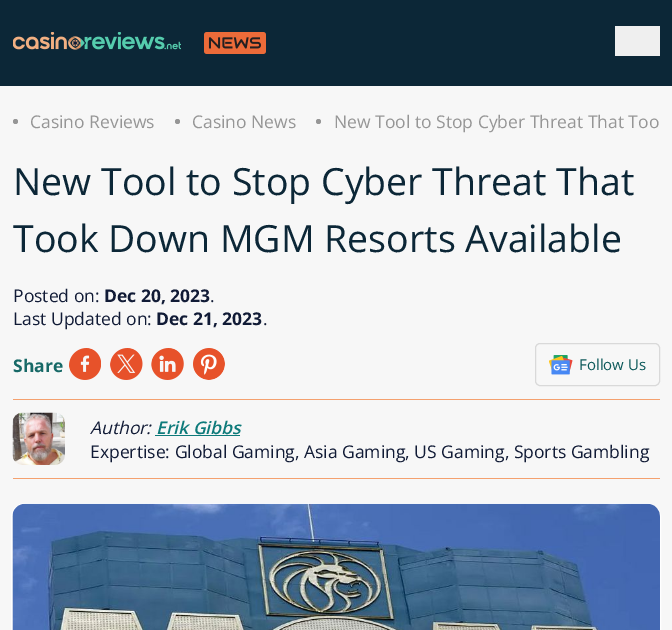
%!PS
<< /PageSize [672 630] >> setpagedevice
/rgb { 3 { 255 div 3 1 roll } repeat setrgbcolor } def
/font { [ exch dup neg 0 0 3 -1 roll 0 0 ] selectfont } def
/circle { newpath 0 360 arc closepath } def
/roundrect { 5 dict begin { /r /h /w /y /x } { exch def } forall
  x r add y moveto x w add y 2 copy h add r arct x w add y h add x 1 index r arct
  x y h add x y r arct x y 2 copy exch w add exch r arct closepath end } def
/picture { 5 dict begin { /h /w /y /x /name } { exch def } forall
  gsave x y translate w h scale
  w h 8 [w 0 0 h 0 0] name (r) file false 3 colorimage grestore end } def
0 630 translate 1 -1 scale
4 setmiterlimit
247 247 247 rgb
0 0 672 630 rectfill
12 39 55 rgb
0 0 672 86 rectfill
(img/1.rgb) 13 32 168 18 picture
(img/2.rgb) 204 32 62 22 picture
239 239 239 rgb
615 26 45 30 rectfill
150 150 150 rgb
15.5 121.5 2.5 circle fill
177.5 121.5 2.5 circle fill
318.5 121.5 2.5 circle fill
(img/3.rgb) 69 348 32 32 picture
(img/4.rgb) 110 348 33 32 picture
(img/5.rgb) 151 348 33 32 picture
(img/6.rgb) 193 348 32 32 picture
217 217 217 rgb
535.5 343.5 124 42 4.5 roundrect stroke
(img/7.rgb) 549 355 24 20 picture
244 161 111 rgb
13 399 647 1 rectfill
13 478 647 1 rectfill
(img/8.rgb) 12 412 53 53 picture
13 122 122 rgb
155 435 85 1 rectfill
255 255 255 rgb
11.5 503.5 649 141 13.5 roundrect stroke
(img/9.rgb) 12 503 648 127 picture
/OpenSans-Regular 17.5 font
150 150 150 rgb
[
  [(Casino Reviews) 30 128]
  [(Casino News) 192 128]
  [(New Tool to Stop Cyber Threat That Too) 334 128]
] { aload pop moveto show } forall
/OpenSans-Regular 37.5 font
12 39 55 rgb
13 195 moveto (New Tool to Stop Cyber Threat That) show
13 252 moveto (Took Down MGM Resorts Available) show
/OpenSans-Regular 17.5 font
17 27 54 rgb
13 302 moveto (Posted on:) show
/OpenSans-Bold 17.5 font
104 302 moveto (Dec 20, 2023) show
/OpenSans-Regular 17.5 font
210 302 moveto (.) show
13 325 moveto (Last Updated on:) show
/OpenSans-Bold 17.5 font
156 325 moveto (Dec 21, 2023) show
/OpenSans-Regular 17.5 font
263 325 moveto (.) show
/OpenSans-Bold 17.5 font
23 105 103 rgb
13 372 moveto (Share) show
/OpenSans-Regular 15 font
12 89 90 rgb
579 370 moveto (Follow Us) show
/OpenSans-Italic 17.5 font
17 27 54 rgb
90 434 moveto (Author:) show
/OpenSans-SemiBoldItalic 17.5 font
13 122 122 rgb
156 434 moveto (Erik Gibbs) show
/OpenSans-Regular 17.5 font
17 27 54 rgb
90 458 moveto (Expertise: Global Gaming, Asia Gaming, US Gaming, Sports Gambling) show
showpage
